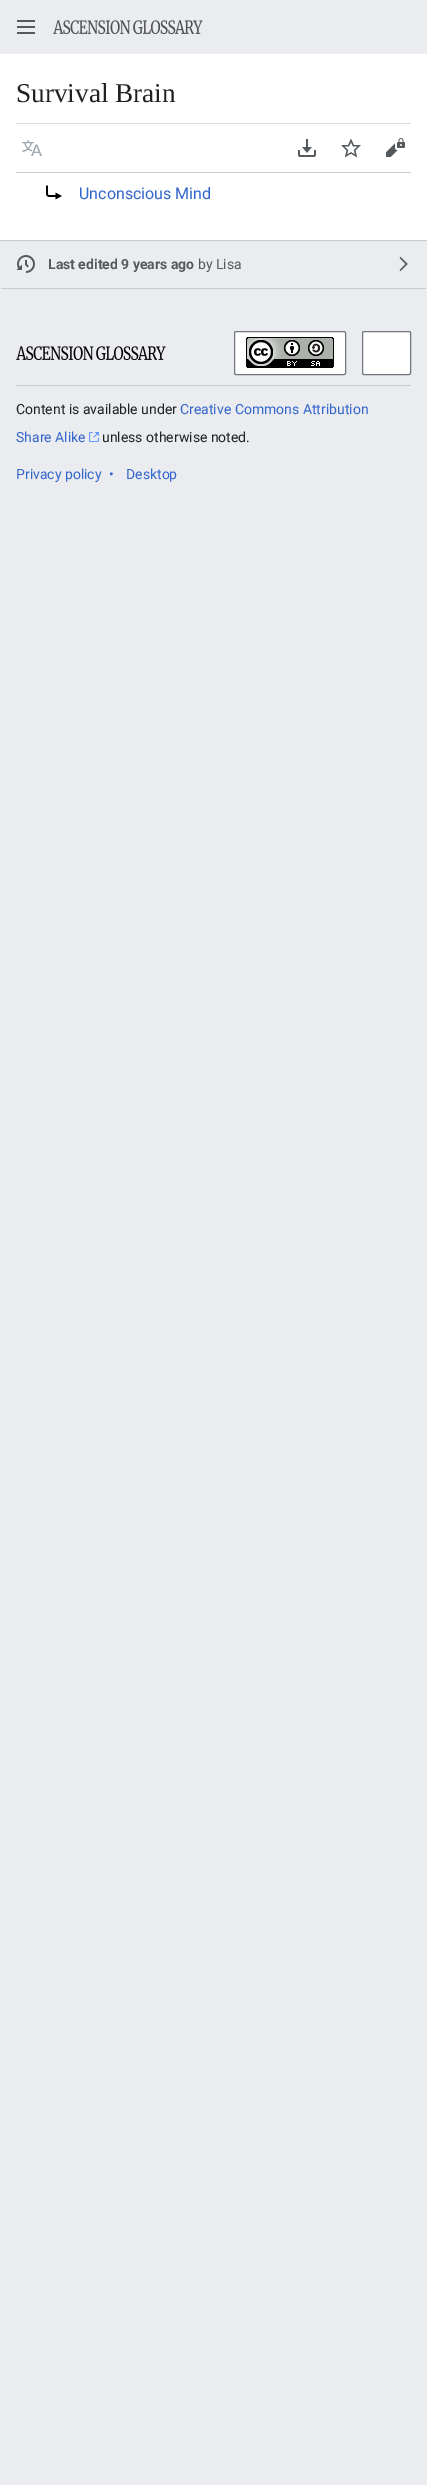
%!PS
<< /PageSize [427 2486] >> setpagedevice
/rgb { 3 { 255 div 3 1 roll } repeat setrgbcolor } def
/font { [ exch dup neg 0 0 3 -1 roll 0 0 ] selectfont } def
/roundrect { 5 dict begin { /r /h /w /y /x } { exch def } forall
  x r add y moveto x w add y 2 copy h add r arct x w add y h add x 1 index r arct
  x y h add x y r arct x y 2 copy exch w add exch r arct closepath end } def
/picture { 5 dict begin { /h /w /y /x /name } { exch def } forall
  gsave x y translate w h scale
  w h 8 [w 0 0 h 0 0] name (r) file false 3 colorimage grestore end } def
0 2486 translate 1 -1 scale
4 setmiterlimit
255 255 255 rgb
0 0 427 2486 rectfill
234 236 240 rgb
0 0 427 2485 rectfill
(img/1.rgb) 17 20 18 14 picture
(img/2.rgb) 53 20 150 14 picture
[
  [0 54 427 186 255 255 255]
  [16 123 395 1 218 221 227]
  [16 172 395 1 200 204 209]
] { aload pop rgb rectfill } forall
(img/3.rgb) 22 140 20 16 picture
(img/4.rgb) 298 139 18 18 picture
(img/5.rgb) 341 138 20 20 picture
(img/6.rgb) 386 138 19 19 picture
(img/7.rgb) 46 185 16 15 picture
0 240 427 1 rectfill
1 288 425 1 rectfill
(img/8.rgb) 16 255 19 18 picture
(img/9.rgb) 399 256 9 16 picture
16 385 395 1 rectfill
(img/10.rgb) 16 346 150 14 picture
255 255 255 rgb
234.5 331.5 111 43 1.5 roundrect gsave fill grestore
114 119 125 rgb
stroke
(img/11.rgb) 246 337 88 31 picture
255 255 255 rgb
362.5 331.5 48 43 1.5 roundrect gsave fill grestore
114 119 125 rgb
stroke
(img/12.rgb) 89 432 10 10 picture
/LiberationSerif-Regular 27.25 font
32 33 34 rgb
16 102 moveto (Survival Brain) show
/Roboto-Regular 16 font
51 102 204 rgb
79 199 moveto (Unconscious Mind) show
/Roboto-Bold 14 font
84 89 93 rgb
48 269 moveto (Last edited 9 years ago) show
/Roboto-Regular 14 font
198 269 moveto (by Lisa) show
32 33 34 rgb
16 414 moveto (Content is available under) show
51 102 204 rgb
180 414 moveto (Creative Commons Attribution) show
16 442 moveto (Share Alike) show
32 33 34 rgb
102 442 moveto (unless otherwise noted.) show
51 102 204 rgb
[
  [(Privacy policy) 16 479]
  [(•) 109 479]
  [(Desktop) 126 479]
] { aload pop moveto show } forall
showpage
